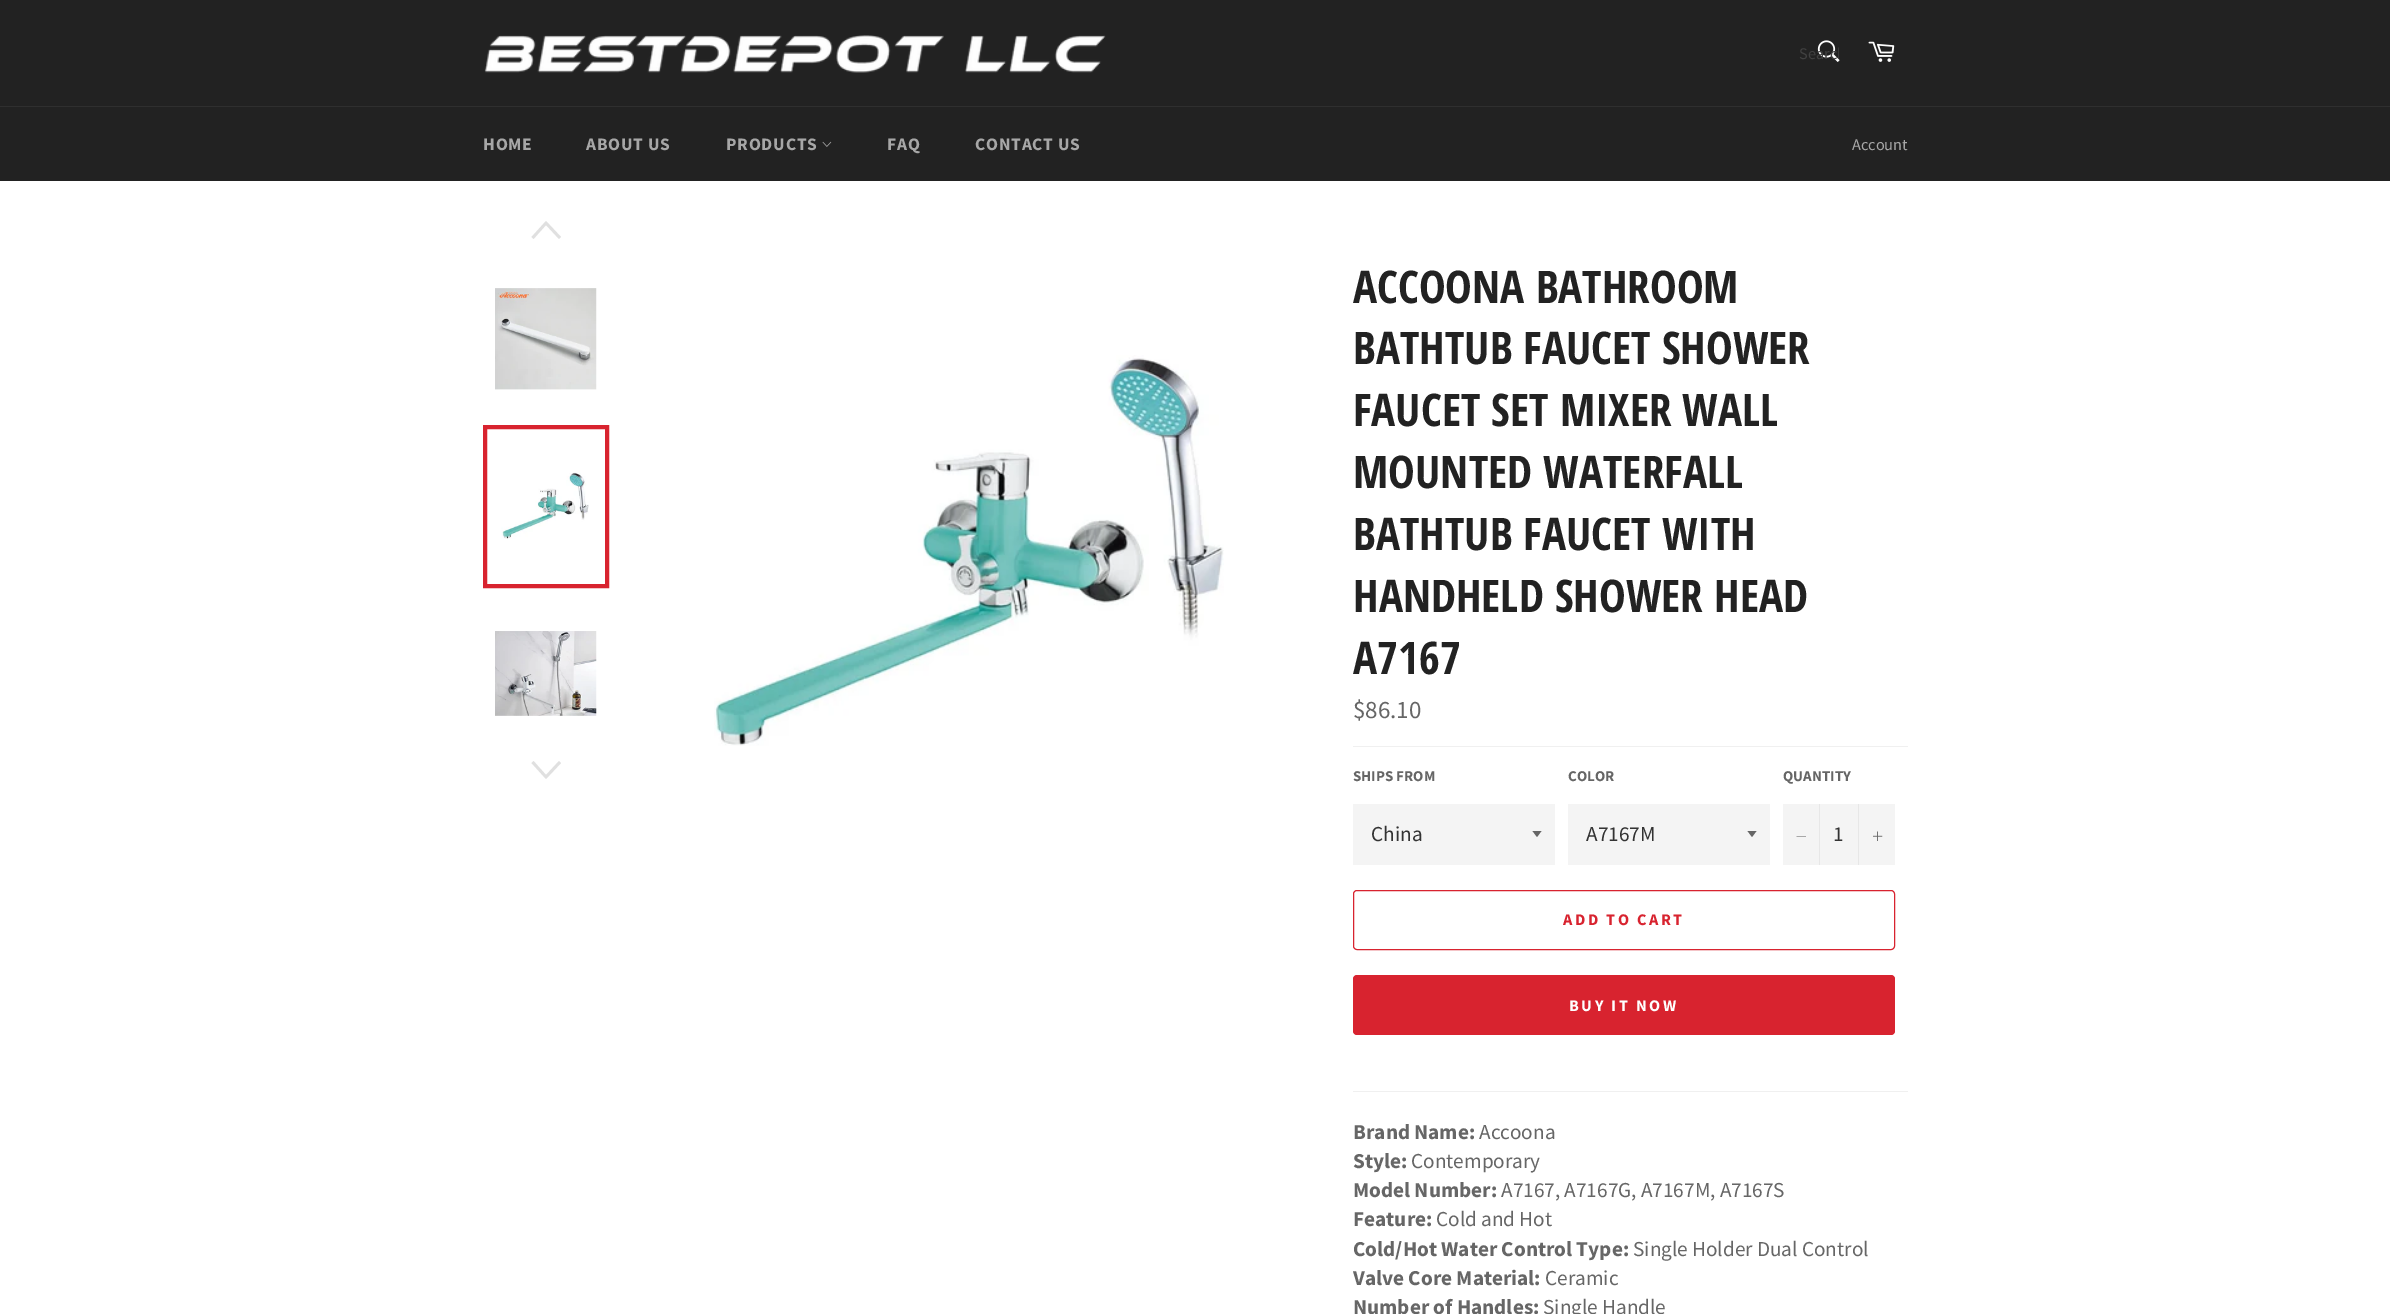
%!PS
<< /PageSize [2390 1314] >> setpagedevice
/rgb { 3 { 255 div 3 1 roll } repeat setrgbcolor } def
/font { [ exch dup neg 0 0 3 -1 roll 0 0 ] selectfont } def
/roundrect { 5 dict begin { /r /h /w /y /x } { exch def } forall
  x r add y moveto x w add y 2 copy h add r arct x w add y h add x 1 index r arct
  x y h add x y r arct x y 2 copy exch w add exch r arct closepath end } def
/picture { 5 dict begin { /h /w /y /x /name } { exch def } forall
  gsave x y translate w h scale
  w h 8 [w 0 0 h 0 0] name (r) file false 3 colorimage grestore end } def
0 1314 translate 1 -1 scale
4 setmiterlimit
34 34 34 rgb
0 0 2390 1314 rectfill
(img/1.rgb) 484 35 622 38 picture
(img/2.rgb) 1817 40 23 22 picture
(img/3.rgb) 1868 41 27 21 picture
47 47 47 rgb
0 106 2390 1 rectfill
(img/4.rgb) 822 141 10 6 picture
255 255 255 rgb
0 181 2390 1133 rectfill
224 224 224 rgb
559 239 moveto 561 237 lineto 546 221 lineto 531.5 237 lineto 533.5 239 lineto 546 225 lineto closepath fill
(img/5.rgb) 495 288 102 102 picture
(img/6.rgb) 501 472 88 67 picture
216 35 47 rgb
4 setlinewidth
485 427 122 159 rectstroke
(img/7.rgb) 495 631 102 85 picture
224 224 224 rgb
559 761 moveto 561 763 lineto 546 779 lineto 531.5 763 lineto 533.5 761 lineto 546 775 lineto closepath fill
(img/8.rgb) 714 355 510 391 picture
240 240 240 rgb
1353 746 555 1 rectfill
244 244 244 rgb
1353 804 202 61 rectfill
102 102 102 rgb
1532.5 831 moveto 1537 837 lineto 1541.5 831 lineto closepath fill
244 244 244 rgb
1568 804 202 61 rectfill
102 102 102 rgb
1747.5 831 moveto 1752 837 lineto 1756.5 831 lineto closepath fill
244 244 244 rgb
1783 804 112 61 rectfill
231 231 231 rgb
1819 804 1 61 rectfill
102 102 102 rgb
1806 836 moveto 1806 836.5 lineto 1796.5 836.5 lineto 1796.5 836 lineto closepath eofill
231 231 231 rgb
1858 804 1 61 rectfill
(img/9.rgb) 1873 831 10 10 picture
216 35 47 rgb
1 setlinewidth
1353.5 890.5 541 59 3.5 roundrect stroke
1353 975 542 60 4 roundrect fill
240 240 240 rgb
1353 1091 555 1 rectfill
gsave
1799 43 40 21 rectclip
/SourceSansPro-Regular 16.25 font
65 65 65 rgb
1799 59 moveto (Search) show
grestore
/SourceSansPro-Bold 17.5 font
167 167 167 rgb
483 150 moveto 0.75 0 (HOME) ashow
586 150 moveto 0.75 0 (ABOUT US) ashow
726 150 moveto 0.75 0 (PRODUCTS) ashow
887 150 moveto 0.75 0 (FAQ) ashow
975 150 moveto 0.75 0 (CONTACT US) ashow
/SourceSansPro-Regular 16.25 font
1852 150 moveto (Account) show
/OpenSansCondensed-Bold 45 font
34 34 34 rgb
[
  [(ACCOONA BATHROOM) 1353 303]
  [(BATHTUB FAUCET SHOWER) 1353 364]
  [(FAUCET SET MIXER WALL) 1353 426]
  [(MOUNTED WATERFALL) 1353 488]
  [(BATHTUB FAUCET WITH) 1353 550]
  [(HANDHELD SHOWER HEAD) 1353 612]
  [(A7167) 1353 674]
] { aload pop moveto show } forall
/SourceSansPro-Regular 25 font
102 102 102 rgb
1353 718 moveto ($86.10) show
/SourceSansPro-Bold 15 font
1353 781 moveto (SHIPS FROM) show
/SourceSansPro-Regular 21.25 font
51 51 51 rgb
1371 841 moveto (China) show
/SourceSansPro-Bold 15 font
102 102 102 rgb
1568 781 moveto (COLOR) show
/SourceSansPro-Regular 21.25 font
51 51 51 rgb
1586 841 moveto (A7167M) show
/SourceSansPro-Bold 15 font
102 102 102 rgb
1783 781 moveto (QUANTITY) show
/SourceSansPro-Regular 21.25 font
51 51 51 rgb
1833 841 moveto (1) show
/SourceSansPro-Bold 16.25 font
216 35 47 rgb
1563 925 moveto 2.5 0 (ADD TO CART) ashow
255 255 255 rgb
1569 1011 moveto 2.5 0 (BUY IT NOW) ashow
/SourceSansPro-Bold 21.25 font
102 102 102 rgb
1353 1139 moveto (Brand Name:) show
/SourceSansPro-Regular 21.25 font
1479 1139 moveto (Accoona) show
/SourceSansPro-Bold 21.25 font
1353 1168 moveto (Style:) show
/SourceSansPro-Regular 21.25 font
1411 1168 moveto (Contemporary) show
/SourceSansPro-Bold 21.25 font
1353 1197 moveto (Model Number:) show
/SourceSansPro-Regular 21.25 font
1501 1197 moveto (A7167, A7167G, A7167M, A7167S) show
/SourceSansPro-Bold 21.25 font
1353 1226 moveto (Feature:) show
/SourceSansPro-Regular 21.25 font
1436 1226 moveto (Cold and Hot) show
/SourceSansPro-Bold 21.25 font
1353 1256 moveto (Cold/Hot Water Control Type:) show
/SourceSansPro-Regular 21.25 font
1633 1256 moveto (Single Holder Dual Control) show
/SourceSansPro-Bold 21.25 font
1353 1285 moveto (Valve Core Material:) show
/SourceSansPro-Regular 21.25 font
1545 1285 moveto (Ceramic) show
/SourceSansPro-Bold 21.25 font
1353 1314 moveto (Number of Handles:) show
/SourceSansPro-Regular 21.25 font
1543 1314 moveto (Single Handle) show
showpage
